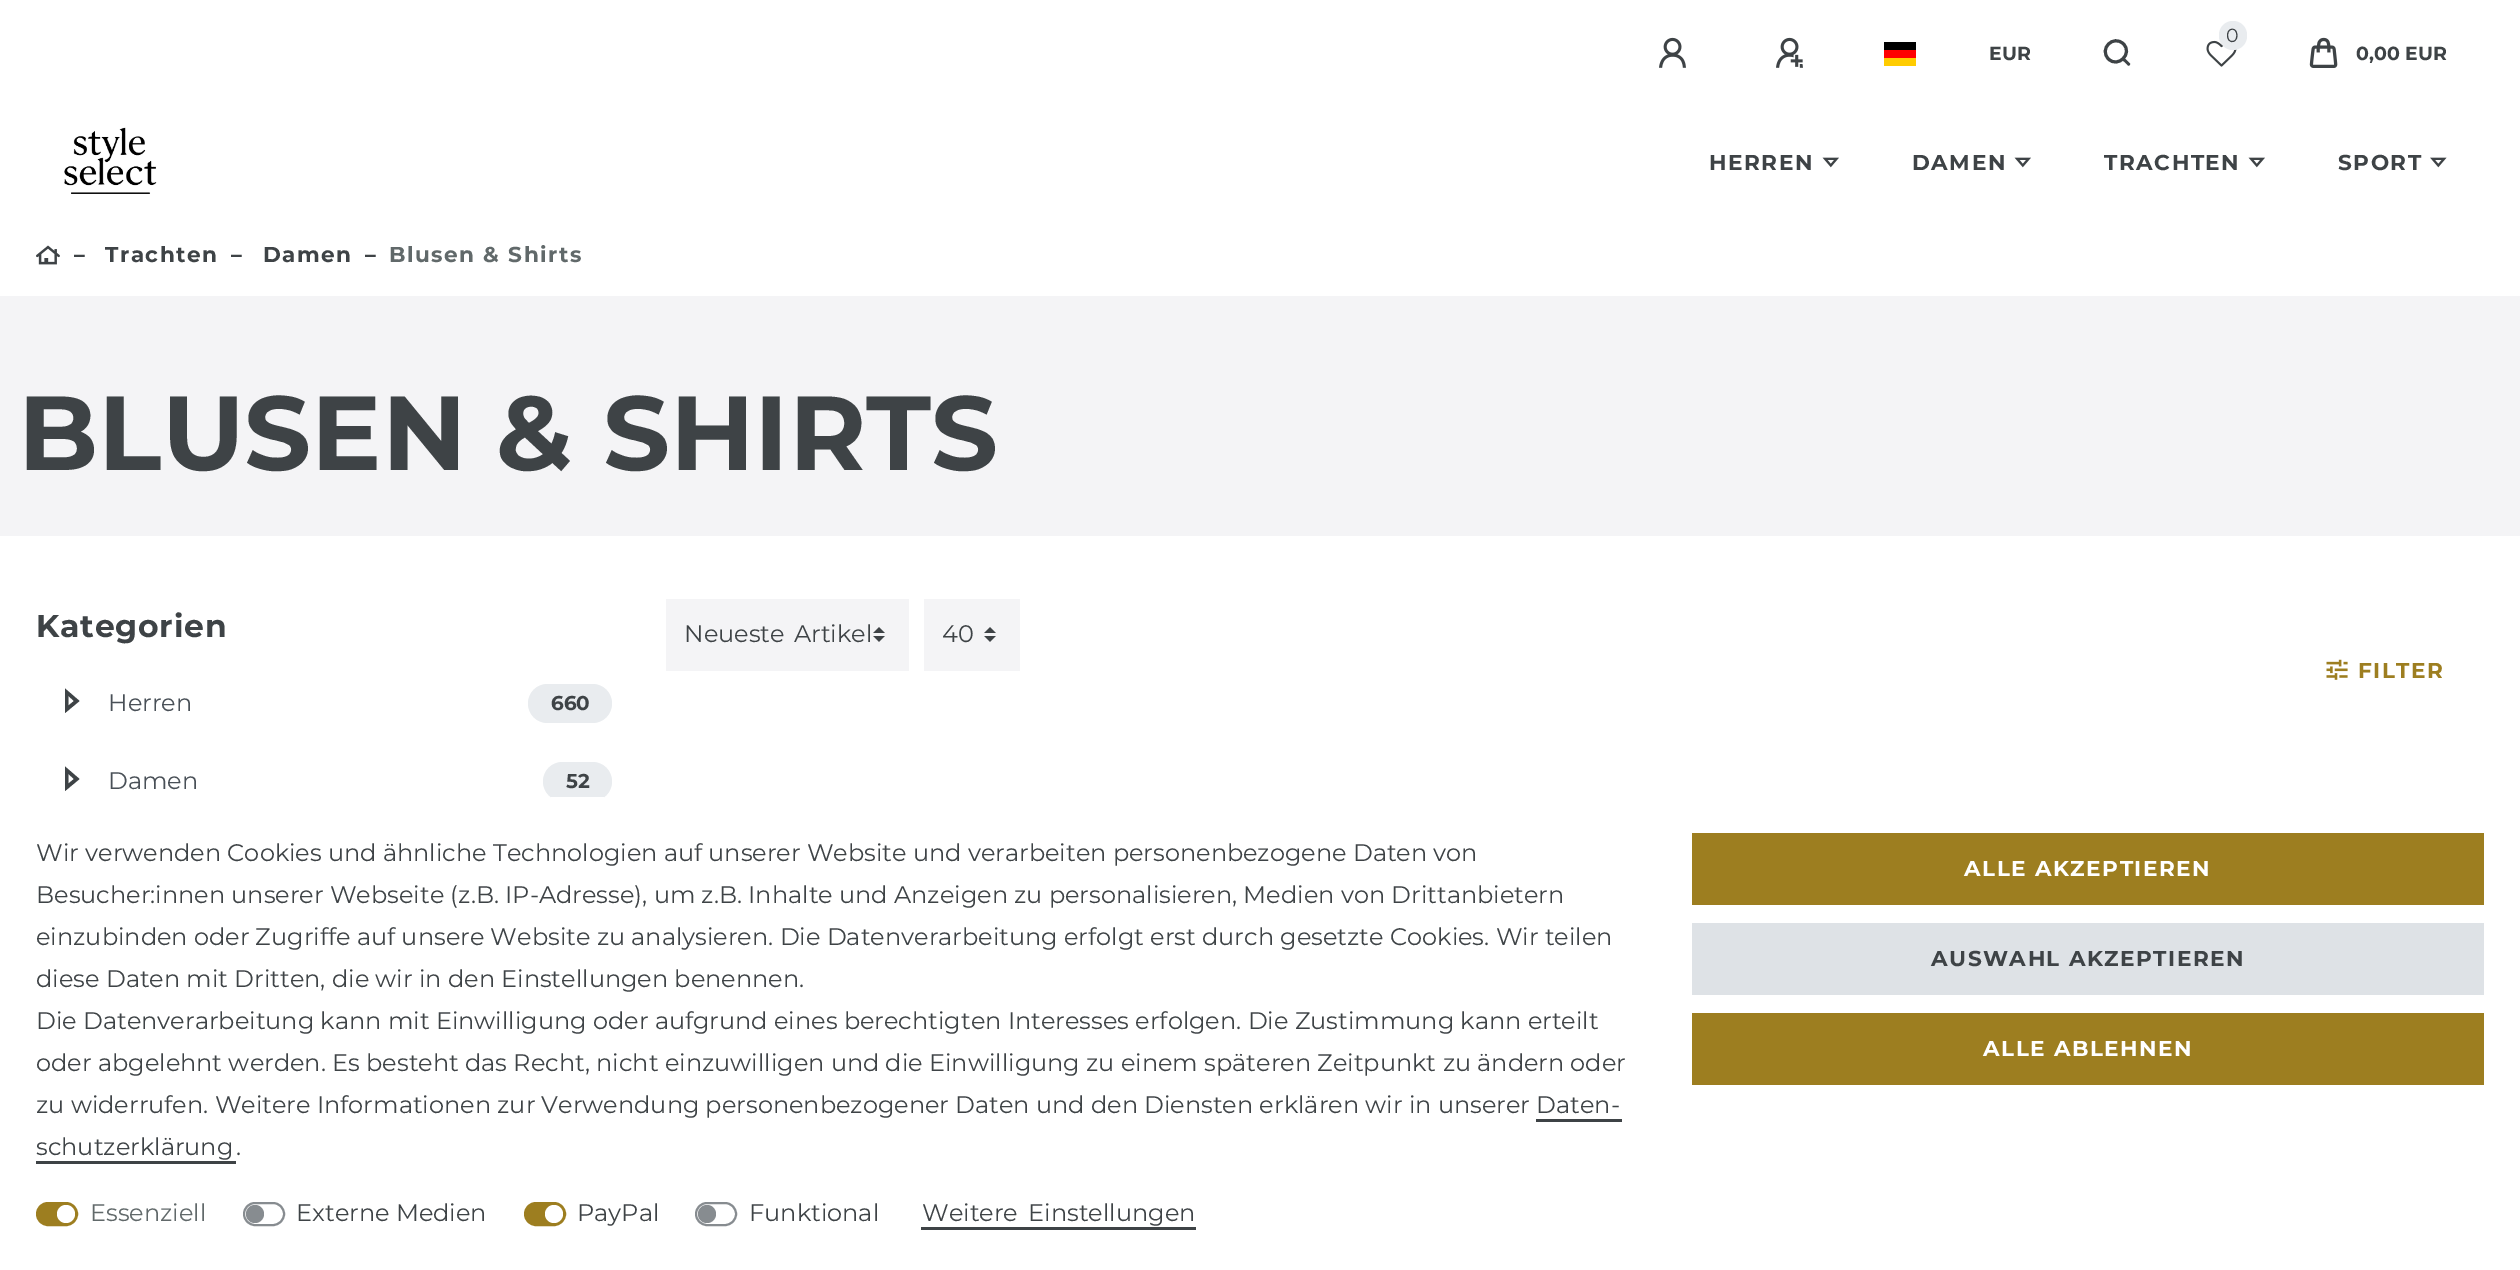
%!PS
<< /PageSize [2520 1270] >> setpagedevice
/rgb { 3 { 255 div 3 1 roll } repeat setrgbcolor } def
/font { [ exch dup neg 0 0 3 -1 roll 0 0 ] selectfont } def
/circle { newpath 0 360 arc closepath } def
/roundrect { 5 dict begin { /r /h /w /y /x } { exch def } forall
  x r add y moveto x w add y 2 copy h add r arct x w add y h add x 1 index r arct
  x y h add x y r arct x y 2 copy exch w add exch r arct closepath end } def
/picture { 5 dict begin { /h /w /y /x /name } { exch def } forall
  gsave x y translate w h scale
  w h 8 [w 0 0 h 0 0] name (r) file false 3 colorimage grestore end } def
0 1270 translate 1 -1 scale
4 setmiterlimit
255 255 255 rgb
0 0 2520 1270 rectfill
(img/1.rgb) 2206 40 31 27 picture
233 236 239 rgb
2219 21 28 29 14 roundrect fill
(img/2.rgb) 1659 37 27 31 picture
(img/3.rgb) 1776 37 27 31 picture
[
  [1884 58 32 8 255 204 0]
  [1884 42 32 8 0 0 0]
  [1884 50 32 8 255 0 0]
] { aload pop rgb rectfill } forall
62 67 70 rgb
2127.5 65 moveto 2124 61.5 lineto 2123 61 2120.5 59 2122.5 57.5 curveto 2124 57.5 lineto 2130 63.5 lineto 2130.5 65 2128.5 66.5 2127.5 65 curveto closepath fill
3 setlinewidth
2108.5 59 moveto 2098.5 49 2113.5 34 2123.5 44 curveto 2133 53.5 2118 68.5 2108.5 59 curveto closepath stroke
(img/4.rgb) 2309 37 29 31 picture
(img/5.rgb) 64 127 93 67 picture
(img/6.rgb) 1822 157 17 11 picture
(img/6.rgb) 2014 157 17 11 picture
(img/6.rgb) 2248 157 17 11 picture
(img/7.rgb) 2430 157 17 11 picture
(img/8.rgb) 36 245 24 20 picture
244 244 246 rgb
0 296 2520 240 rectfill
62 67 70 rgb
79.5 701 moveto 65 713 lineto 65 688.5 lineto closepath 68.5 705.5 moveto 74 701 lineto 68.5 696 lineto closepath fill
233 236 239 rgb
528 684 84 39 19.5 roundrect fill
62 67 70 rgb
79.5 779 moveto 65 791 lineto 65 766.5 lineto closepath 68.5 783.5 moveto 74 779 lineto 68.5 774 lineto closepath fill
233 236 239 rgb
543 762 69 39 19.5 roundrect fill
244 244 246 rgb
666 599 243 72 rectfill
(img/9.rgb) 873 627 12 15 picture
924 599 96 72 rectfill
(img/9.rgb) 984 627 12 15 picture
(img/10.rgb) 2326 659 22 21 picture
[
  [551 797 53 4 255 255 255]
  [1536 1119 86 3 62 67 70]
  [36 1161 200 3 62 67 70]
] { aload pop rgb rectfill } forall
157 126 32 rgb
37 1203 40 22 11 roundrect gsave fill grestore
2 setlinewidth
stroke
255 255 255 rgb
66 1214 9 circle fill
135 140 144 rgb
244 1203 40 22 11 roundrect stroke
255 1214 9 circle fill
157 126 32 rgb
525 1203 40 22 11 roundrect gsave fill grestore
stroke
255 255 255 rgb
554 1214 9 circle fill
135 140 144 rgb
696 1203 40 22 11 roundrect stroke
707 1214 9 circle fill
[
  [921 1227 275 3 62 67 70]
  [1692 833 792 72 157 126 32]
  [1692 923 792 72 222 226 230]
  [1692 1013 792 72 157 126 32]
] { aload pop rgb rectfill } forall
/Montserrat-Regular 19 font
62 67 70 rgb
2226 42 moveto (0) show
/Montserrat-Bold 19 font
1989 60 moveto (EUR) show
2356 60 moveto (0,00 EUR) show
/Montserrat-Bold 21.6 font
1709 170 moveto 1.5 0 (HERREN) ashow
1912 170 moveto 1.5 0 (DAMEN) ashow
2104 170 moveto 1.5 0 (TRACHTEN) ashow
2338 170 moveto 1.5 0 (SPORT) ashow
74 262 moveto 1.5 0 (–) ashow
105 262 moveto 1.5 0 (Trachten) ashow
231 262 moveto 1.5 0 (–) ashow
263 262 moveto 1.5 0 (Damen) ashow
365 262 moveto 1.5 0 (–) ashow
97 105 106 rgb
389 262 moveto 1.5 0 (Blusen & Shirts) ashow
/Montserrat-Bold 105 font
62 67 70 rgb
18 470 moveto (BLUSEN & SHIRTS) show
/Montserrat-Bold 31.5 font
36 637 moveto 0.75 0 (Kategorien) ashow
/Montserrat-Regular 24 font
73 80 87 rgb
108 711 moveto (Herren) show
/Montserrat-Bold 20 font
62 67 70 rgb
551 710 moveto (660) show
/Montserrat-Regular 24 font
73 80 87 rgb
108 789 moveto (Damen) show
/Montserrat-Bold 20 font
62 67 70 rgb
566 788 moveto (52) show
/Montserrat-Regular 24 font
684 642 moveto 3 0 32 (Neueste Artikel) widthshow
942 642 moveto (40) show
/Montserrat-Bold 21.6 font
157 126 32 rgb
2358 678 moveto 1.5 0 (FILTER) ashow
/Montserrat-Regular 24 font
62 67 70 rgb
[
  [(Wir verwenden Cookies und ähnliche Technologien auf unserer Website und verarbeiten personenbezogene Daten von) 36 861]
  [(Besucher:innen unserer Webseite \(z.B. IP-Adresse\), um z.B. Inhalte und Anzeigen zu personalisieren, Medien von Drittanbietern) 36 903]
  [(einzubinden oder Zugriffe auf unsere Website zu analysieren. Die Datenverarbeitung erfolgt erst durch gesetzte Cookies. Wir teilen) 36 945]
  [(diese Daten mit Dritten, die wir in den Einstellungen benennen.) 36 987]
  [(Die Datenverarbeitung kann mit Einwilligung oder aufgrund eines berechtigten Interesses erfolgen. Die Zustimmung kann erteilt) 36 1029]
  [(oder abgelehnt werden. Es besteht das Recht, nicht einzuwilligen und die Einwilligung zu einem späteren Zeitpunkt zu ändern oder) 36 1071]
  [(zu widerrufen. Weitere Informationen zur Verwendung personenbezogener Daten und den Diensten erklären wir in unserer Daten-) 36 1113]
  [(schutzerklärung) 36 1155]
  [(.) 236 1155]
] { aload pop moveto show } forall
97 105 106 rgb
90 1221 moveto (Essenziell) show
62 67 70 rgb
[
  [(Externe Medien) 296 1221]
  [(PayPal) 577 1221]
  [(Funktional) 749 1221]
] { aload pop moveto show } forall
922 1221 moveto 4 0 32 (Weitere Einstellungen) widthshow
/Montserrat-Bold 21.6 font
255 255 255 rgb
1964 876 moveto 1.5 0 (ALLE AKZEPTIEREN) ashow
62 67 70 rgb
1931 966 moveto 1.5 0 (AUSWAHL AKZEPTIEREN) ashow
255 255 255 rgb
1983 1056 moveto 1.5 0 (ALLE ABLEHNEN) ashow
showpage
